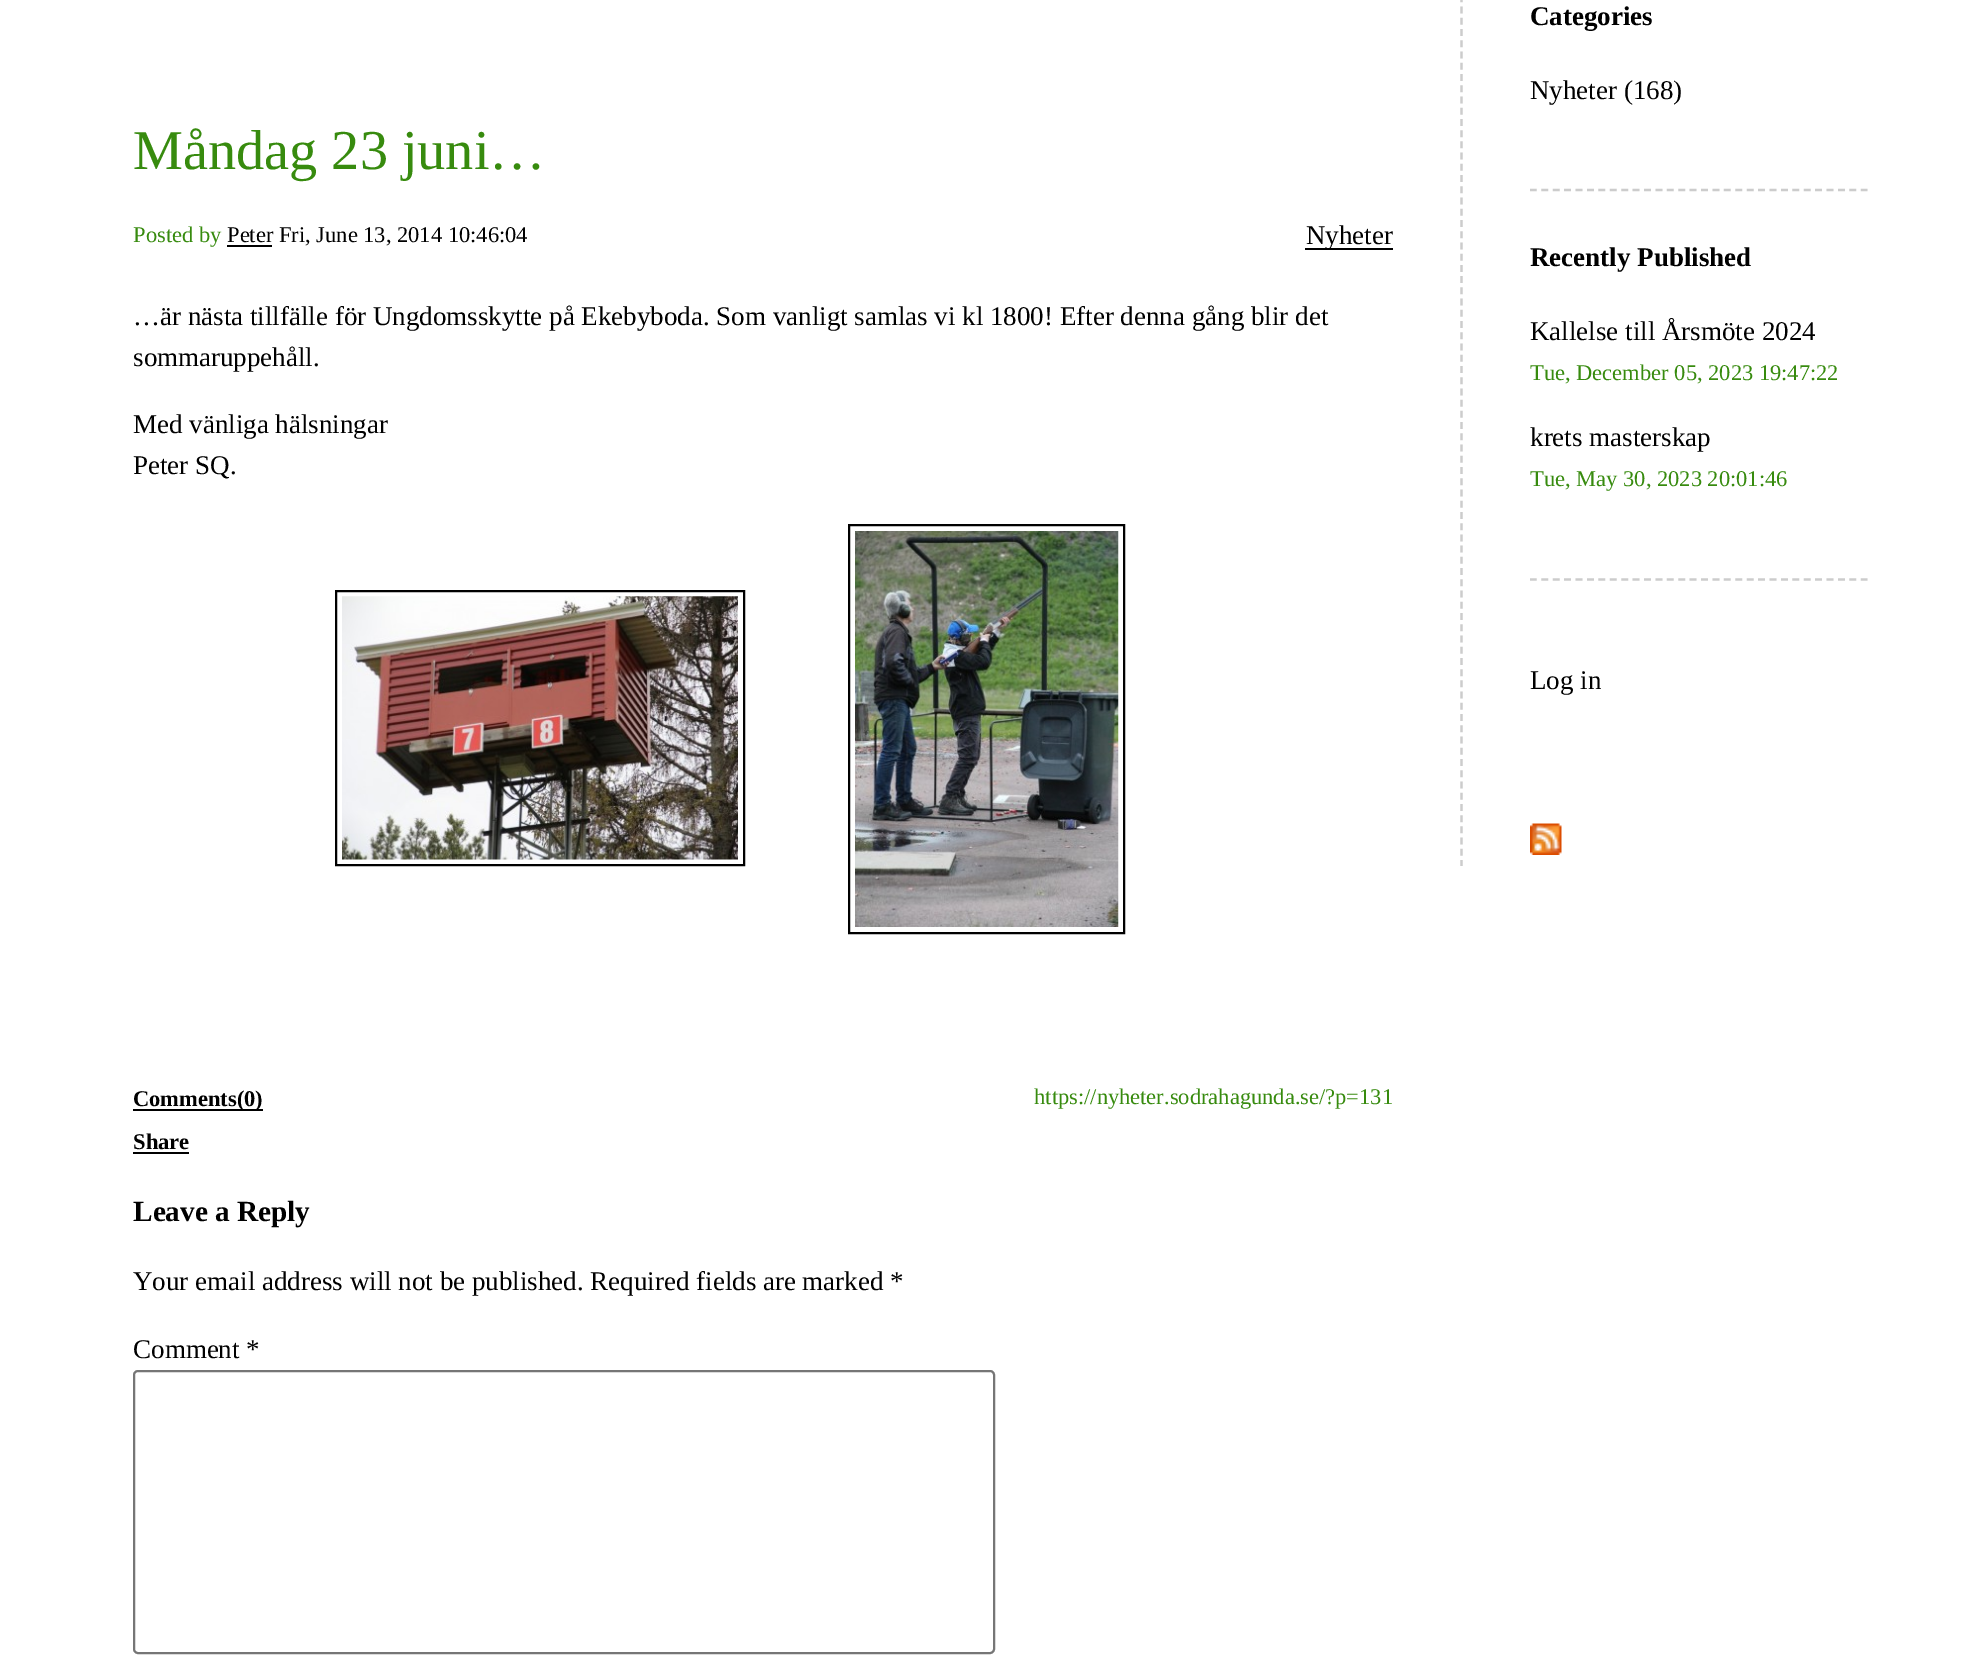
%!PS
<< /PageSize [1975 1659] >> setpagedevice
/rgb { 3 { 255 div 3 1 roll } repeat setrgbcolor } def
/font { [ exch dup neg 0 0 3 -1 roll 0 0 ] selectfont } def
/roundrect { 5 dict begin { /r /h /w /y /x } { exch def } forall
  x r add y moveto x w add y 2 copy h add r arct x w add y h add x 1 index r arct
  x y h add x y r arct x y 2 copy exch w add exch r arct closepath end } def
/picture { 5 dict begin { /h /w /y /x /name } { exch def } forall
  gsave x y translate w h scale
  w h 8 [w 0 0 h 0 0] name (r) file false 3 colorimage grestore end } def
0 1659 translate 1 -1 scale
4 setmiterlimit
255 255 255 rgb
0 0 1975 1659 rectfill
0 0 0 rgb
227 245 45 2 rectfill
1305 248 88 2 rectfill
2 setlinewidth
336 591 408 274 rectstroke
(img/1.rgb) 342 596 396 264 picture
849 525 275 408 rectstroke
(img/2.rgb) 855 531 264 396 picture
133 1109 130 2 rectfill
133 1152 56 2 rectfill
118 118 118 rgb
134 1371 860 282 4 roundrect stroke
204 204 204 rgb
2.2 setlinewidth
[6.75 4.48] 0 setdash
1461.5 -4.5 moveto 1461.5 866 lineto stroke
[6.75 4.66] 0 setdash
1530 190 moveto 1867.5 190 lineto stroke
1530 579.5 moveto 1867.5 579.5 lineto stroke
(img/3.rgb) 1530 823 32 32 picture
/LiberationSerif-Regular 56.25 font
55 139 14 rgb
133 169 moveto (Måndag 23 juni…) show
/LiberationSerif-Regular 22.5 font
133 242 moveto (Posted by) show
0 0 0 rgb
227 242 moveto (Peter Fri, June 13, 2014 10:46:04) show
/LiberationSerif-Regular 27 font
[
  [(Nyheter) 1306 244]
  [(…är nästa tillfälle för Ungdomsskytte på Ekebyboda. Som vanligt samlas vi kl 1800! Efter denna gång blir det) 133 325]
  [(sommaruppehåll.) 133 366]
  [(Med vänliga hälsningar) 133 433]
  [(Peter SQ.) 133 474]
] { aload pop moveto show } forall
/LiberationSerif-Bold 22.5 font
133 1106 moveto (Comments\(0\)) show
/LiberationSerif-Regular 22.5 font
55 139 14 rgb
1034 1104 moveto (https://nyheter.sodrahagunda.se/?p=131) show
/LiberationSerif-Bold 22.5 font
0 0 0 rgb
133 1149 moveto (Share) show
/LiberationSerif-Bold 29.25 font
133 1221 moveto (Leave a Reply) show
/LiberationSerif-Regular 27 font
133 1290 moveto (Your email address will not be published. Required fields are marked *) show
133 1358 moveto (Comment *) show
/LiberationSerif-Bold 27 font
1530 25 moveto (Categories) show
/LiberationSerif-Regular 27 font
1530 99 moveto (Nyheter \(168\)) show
/LiberationSerif-Bold 27 font
1530 266 moveto (Recently Published) show
/LiberationSerif-Regular 27 font
1530 340 moveto (Kallelse till Årsmöte 2024) show
/LiberationSerif-Regular 22.5 font
55 139 14 rgb
1530 380 moveto (Tue, December 05, 2023 19:47:22) show
/LiberationSerif-Regular 27 font
0 0 0 rgb
1530 446 moveto (krets masterskap) show
/LiberationSerif-Regular 22.5 font
55 139 14 rgb
1530 486 moveto (Tue, May 30, 2023 20:01:46) show
/LiberationSerif-Regular 27 font
0 0 0 rgb
1530 689 moveto (Log in) show
showpage
